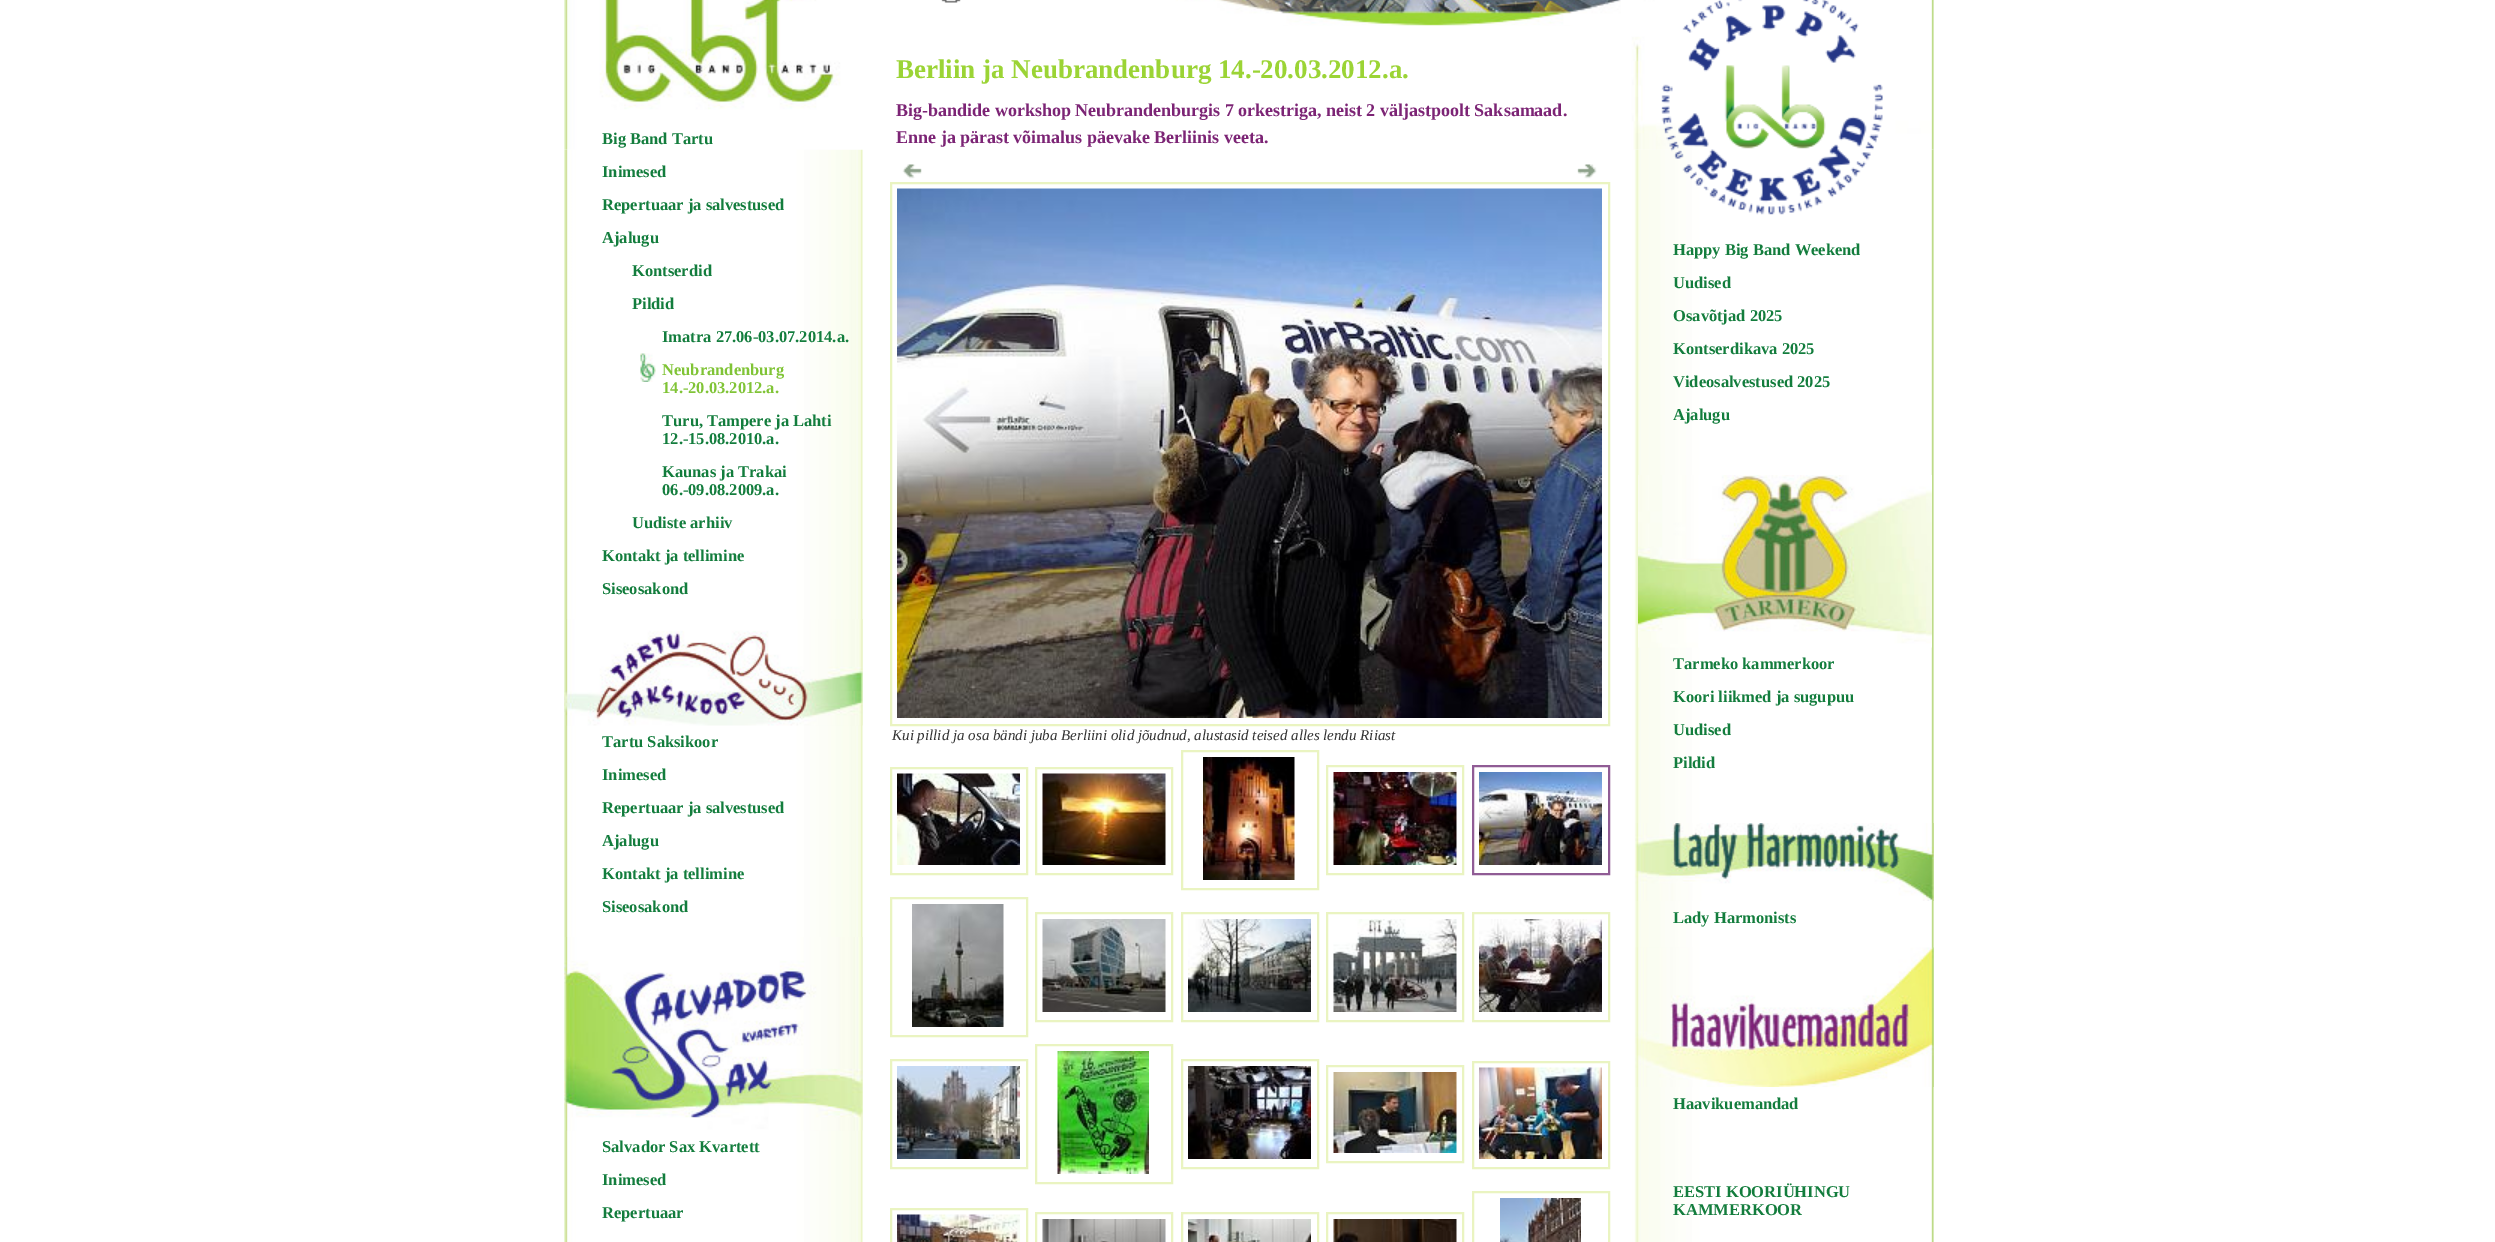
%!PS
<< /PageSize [2495 1242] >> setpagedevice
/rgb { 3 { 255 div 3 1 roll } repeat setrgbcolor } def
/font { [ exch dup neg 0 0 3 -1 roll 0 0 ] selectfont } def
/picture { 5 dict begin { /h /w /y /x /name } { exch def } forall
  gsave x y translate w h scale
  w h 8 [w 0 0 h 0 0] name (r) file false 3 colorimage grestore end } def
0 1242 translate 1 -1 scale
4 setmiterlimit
255 255 255 rgb
0 0 2495 1242 rectfill
(img/4.rgb) 564 149 1370 1093 picture
(img/1.rgb) 564 0 1370 150 picture
(img/2.rgb) 941 0 20 3 picture
(img/3.rgb) 1178 0 443 25 picture
(img/5.rgb) 640 353 16 29 picture
(img/6.rgb) 564 619 299 107 picture
(img/7.rgb) 564 937 299 194 picture
(img/8.rgb) 902 164 20 15 picture
(img/9.rgb) 1577 164 20 15 picture
234 244 193 rgb
2 setlinewidth
891 183 718 542 rectstroke
(img/10.rgb) 897 188 705 530 picture
891 768 136 106 rectstroke
(img/11.rgb) 897 773 123 92 picture
1036 768 136 106 rectstroke
(img/12.rgb) 1042 773 124 92 picture
1182 751 136 138 rectstroke
(img/13.rgb) 1203 757 92 123 picture
1327 766 136 108 rectstroke
(img/14.rgb) 1333 772 124 93 picture
144 92 149 rgb
1473 766 136 108 rectstroke
(img/15.rgb) 1479 772 123 93 picture
234 244 193 rgb
891 898 136 138 rectstroke
(img/16.rgb) 912 904 92 123 picture
1036 913 136 108 rectstroke
(img/17.rgb) 1042 919 124 93 picture
1182 913 136 108 rectstroke
(img/18.rgb) 1188 919 123 93 picture
1327 913 136 108 rectstroke
(img/19.rgb) 1333 919 124 93 picture
1473 913 136 108 rectstroke
(img/20.rgb) 1479 919 123 93 picture
891 1060 136 108 rectstroke
(img/21.rgb) 897 1066 123 93 picture
1036 1045 136 138 rectstroke
(img/22.rgb) 1057 1051 92 123 picture
1182 1060 136 108 rectstroke
(img/23.rgb) 1188 1066 123 93 picture
1327 1066 136 96 rectstroke
(img/24.rgb) 1333 1072 124 81 picture
1473 1062 136 106 rectstroke
(img/25.rgb) 1479 1067 123 92 picture
891 1209 136 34 rectstroke
(img/26.rgb) 897 1214 123 28 picture
1036 1213 136 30 rectstroke
(img/27.rgb) 1042 1219 124 23 picture
1182 1213 136 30 rectstroke
(img/28.rgb) 1188 1219 123 23 picture
1327 1213 136 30 rectstroke
(img/29.rgb) 1333 1219 124 23 picture
1473 1192 136 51 rectstroke
(img/30.rgb) 1500 1198 81 44 picture
(img/31.rgb) 1661 0 222 215 picture
(img/32.rgb) 1638 475 294 173 picture
(img/33.rgb) 1635 823 299 78 picture
(img/34.rgb) 1635 947 299 140 picture
/LiberationSerif-Bold 16.5 font
19 125 61 rgb
[
  [(Big Band Tartu) 602 144]
  [(Inimesed) 602 177]
  [(Repertuaar ja salvestused) 602 210]
  [(Ajalugu) 602 243]
  [(Kontserdid) 632 276]
  [(Pildid) 632 309]
  [(Imatra 27.06-03.07.2014.a.) 662 342]
] { aload pop moveto show } forall
128 196 54 rgb
662 375 moveto (Neubrandenburg) show
662 393 moveto (14.-20.03.2012.a.) show
19 125 61 rgb
[
  [(Turu, Tampere ja Lahti) 662 426]
  [(12.-15.08.2010.a.) 662 444]
  [(Kaunas ja Trakai) 662 477]
  [(06.-09.08.2009.a.) 662 495]
  [(Uudiste arhiiv) 632 528]
  [(Kontakt ja tellimine) 602 561]
  [(Siseosakond) 602 594]
  [(Tartu Saksikoor) 602 747]
  [(Inimesed) 602 780]
  [(Repertuaar ja salvestused) 602 813]
  [(Ajalugu) 602 846]
  [(Kontakt ja tellimine) 602 879]
  [(Siseosakond) 602 912]
  [(Salvador Sax Kvartett) 602 1152]
  [(Inimesed) 602 1185]
  [(Repertuaar) 602 1218]
] { aload pop moveto show } forall
/LiberationSerif-Bold 27 font
155 212 53 rgb
896 78 moveto (Berliin ja Neubrandenburg 14.-20.03.2012.a.) show
/LiberationSerif-Bold 18 font
124 36 117 rgb
896 116 moveto (Big-bandide workshop Neubrandenburgis 7 orkestriga, neist 2 väljastpoolt Saksamaad.) show
896 143 moveto (Enne ja pärast võimalus päevake Berliinis veeta.) show
/LiberationSerif-Italic 15 font
51 51 51 rgb
892 740 moveto (Kui pillid ja osa bändi juba Berliini olid jõudnud, alustasid teised alles lendu Riiast) show
/LiberationSerif-Bold 16.5 font
19 125 61 rgb
[
  [(Happy Big Band Weekend) 1673 255]
  [(Uudised) 1673 288]
  [(Osavõtjad 2025) 1673 321]
  [(Kontserdikava 2025) 1673 354]
  [(Videosalvestused 2025) 1673 387]
  [(Ajalugu) 1673 420]
  [(Tarmeko kammerkoor) 1673 669]
  [(Koori liikmed ja sugupuu) 1673 702]
  [(Uudised) 1673 735]
  [(Pildid) 1673 768]
  [(Lady Harmonists) 1673 923]
  [(Haavikuemandad) 1673 1109]
  [(EESTI KOORIÜHINGU) 1673 1197]
  [(KAMMERKOOR) 1673 1215]
] { aload pop moveto show } forall
showpage
